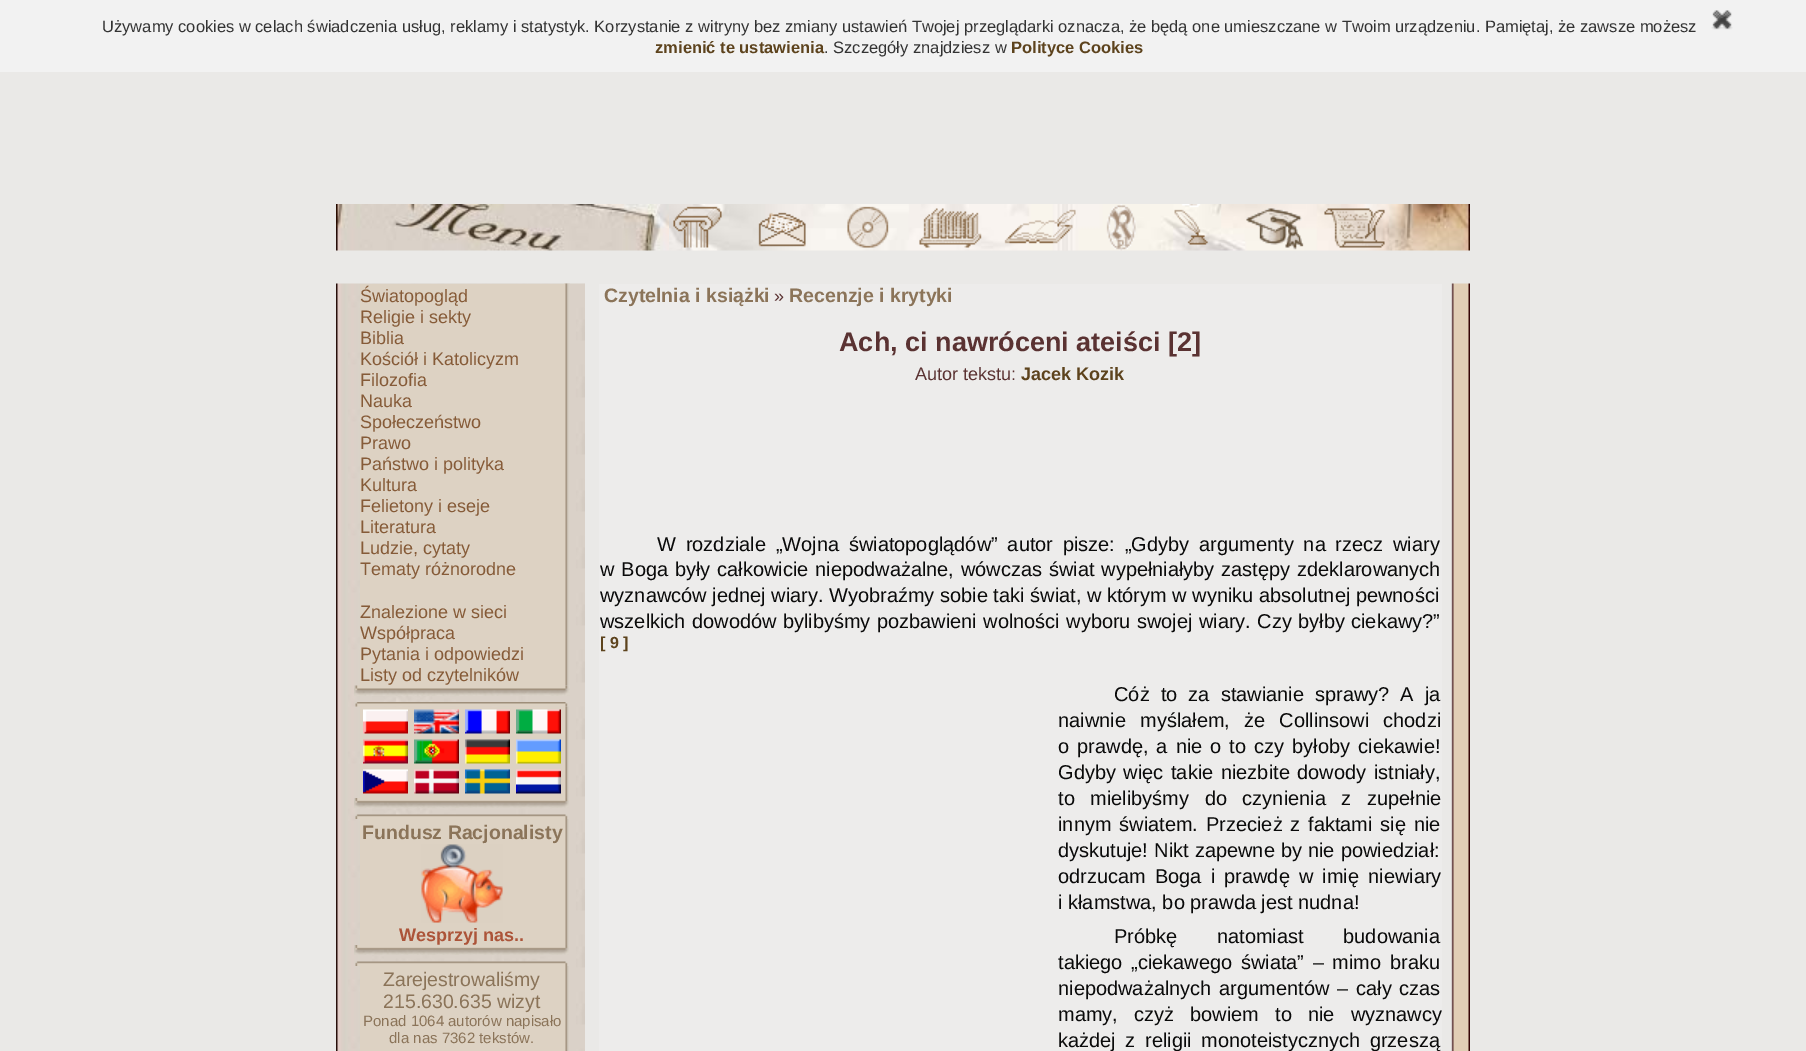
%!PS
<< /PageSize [1806 1051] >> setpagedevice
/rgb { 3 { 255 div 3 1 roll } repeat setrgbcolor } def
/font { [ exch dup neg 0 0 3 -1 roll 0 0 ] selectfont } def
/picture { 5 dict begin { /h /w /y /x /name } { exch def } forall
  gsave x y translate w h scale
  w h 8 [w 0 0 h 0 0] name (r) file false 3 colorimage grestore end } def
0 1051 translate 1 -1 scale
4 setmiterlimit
234 233 231 rgb
0 0 1806 1051 rectfill
242 242 242 rgb
0 0 1806 72 rectfill
(img/1.rgb) 1711 10 22 20 picture
(img/2.rgb) 336 204 333 47 picture
(img/3.rgb) 669 204 801 47 picture
(img/4.rgb) 673 206 49 42 picture
(img/5.rgb) 758 212 48 35 picture
(img/6.rgb) 847 206 42 42 picture
(img/7.rgb) 919 208 63 40 picture
(img/8.rgb) 1004 209 72 35 picture
(img/9.rgb) 1106 204 30 47 picture
(img/10.rgb) 1174 204 34 41 picture
(img/11.rgb) 1246 208 58 42 picture
(img/12.rgb) 1324 208 61 40 picture
(img/13.rgb) 336 283 249 768 picture
(img/14.rgb) 564 283 6 403 picture
(img/15.rgb) 354 685 216 11 picture
221 210 195 rgb
360 284 204 402 rectfill
(img/29.rgb) 564 706 5 92 picture
(img/16.rgb) 355 702 213 5 picture
360 707 204 91 rectfill
(img/17.rgb) 363 709 45 25 picture
(img/18.rgb) 414 709 45 25 picture
(img/19.rgb) 465 709 45 25 picture
(img/20.rgb) 516 709 45 25 picture
(img/21.rgb) 363 739 45 25 picture
(img/22.rgb) 414 739 45 25 picture
(img/23.rgb) 465 739 45 25 picture
(img/24.rgb) 516 739 45 25 picture
(img/25.rgb) 363 769 45 25 picture
(img/26.rgb) 414 769 45 25 picture
(img/27.rgb) 465 769 45 25 picture
(img/28.rgb) 516 769 45 25 picture
(img/30.rgb) 354 798 215 10 picture
(img/31.rgb) 355 814 213 5 picture
360 819 204 126 rectfill
(img/32.rgb) 421 844 82 79 picture
(img/33.rgb) 564 819 5 126 picture
(img/30.rgb) 354 945 215 10 picture
(img/34.rgb) 355 961 213 5 picture
360 966 204 85 rectfill
(img/35.rgb) 564 966 5 85 picture
237 236 235 rgb
599 284 843 767 rectfill
(img/36.rgb) 1451 283 19 768 picture
/LiberationSans-Regular 16.5 font
51 51 51 rgb
102 32 moveto (Używamy cookies w celach świadczenia usług, reklamy i statystyk. Korzystanie z witryny bez zmiany ustawień Twojej przeglądarki oznacza, że będą one umieszczane w Twoim urządzeniu. Pamiętaj, że zawsze możesz) show
/LiberationSans-Bold 16.5 font
93 67 29 rgb
655 53 moveto (zmienić te ustawienia) show
/LiberationSans-Regular 16.5 font
51 51 51 rgb
824 53 moveto (. Szczegóły znajdziesz w) show
/LiberationSans-Bold 16.5 font
93 67 29 rgb
1011 53 moveto (Polityce Cookies) show
/LiberationSans-Regular 18 font
134 91 56 rgb
[
  [(Światopogląd) 360 302]
  [(Religie i sekty) 360 323]
  [(Biblia) 360 344]
  [(Kościół i Katolicyzm) 360 365]
  [(Filozofia) 360 386]
  [(Nauka) 360 407]
  [(Społeczeństwo) 360 428]
  [(Prawo) 360 449]
  [(Państwo i polityka) 360 470]
  [(Kultura) 360 491]
  [(Felietony i eseje) 360 512]
  [(Literatura) 360 533]
  [(Ludzie, cytaty) 360 554]
  [(Tematy różnorodne) 360 575]
  [(Znalezione w sieci) 360 618]
  [(Współpraca) 360 639]
  [(Pytania i odpowiedzi) 360 660]
  [(Listy od czytelników) 360 681]
] { aload pop moveto show } forall
/LiberationSans-Bold 19.5 font
139 116 89 rgb
362 839 moveto (Fundusz Racjonalisty) show
/LiberationSans-Bold 18 font
172 84 57 rgb
399 941 moveto (Wesprzyj nas..) show
/LiberationSans-Regular 19.5 font
139 116 89 rgb
383 986 moveto (Zarejestrowaliśmy) show
383 1008 moveto (215.630.635 wizyt) show
/LiberationSans-Regular 15 font
363 1026 moveto (Ponad 1064 autorów napisało) show
389 1043 moveto (dla nas 7362 tekstów.) show
/LiberationSans-Bold 19.5 font
604 302 moveto (Czytelnia i książki) show
/LiberationSans-Regular 18 font
90 50 50 rgb
774 302 moveto (») show
/LiberationSans-Bold 19.5 font
139 116 89 rgb
789 302 moveto (Recenzje i krytyki) show
/LiberationSans-Bold 27 font
90 50 50 rgb
839 351 moveto (Ach, ci nawróceni ateiści [2]) show
/LiberationSans-Regular 18 font
915 380 moveto (Autor tekstu:) show
/LiberationSans-Bold 18 font
93 67 29 rgb
1021 380 moveto (Jacek Kozik) show
/LiberationSans-Regular 20 font
10 10 10 rgb
657 551 moveto 4.25 0 32 (W rozdziale „Wojna światopoglądów” autor pisze: „Gdyby argumenty na rzecz wiary) widthshow
600 576 moveto 1.25 0 32 (w Boga były całkowicie niepodważalne, wówczas świat wypełniałyby zastępy zdeklarowanych) widthshow
600 602 moveto (wyznawców jednej wiary. Wyobraźmy sobie taki świat, w którym w wyniku absolutnej pewności) show
600 628 moveto 0.75 0 32 (wszelkich dowodów bylibyśmy pozbawieni wolności wyboru swojej wiary. Czy byłby ciekawy?”) widthshow
/LiberationSans-Bold 16 font
93 67 29 rgb
600 648 moveto ([ 9 ]) show
/LiberationSans-Regular 20 font
10 10 10 rgb
1114 701 moveto 5.5 0 32 (Cóż to za stawianie sprawy? A ja) widthshow
1058 727 moveto 8.5 0 32 (naiwnie myślałem, że Collinsowi chodzi) widthshow
1058 753 moveto 2.5 0 32 (o prawdę, a nie o to czy byłoby ciekawie!) widthshow
1058 779 moveto 2 0 32 (Gdyby więc takie niezbite dowody istniały,) widthshow
1058 805 moveto 10 0 32 (to mielibyśmy do czynienia z zupełnie) widthshow
1058 831 moveto 2.25 0 32 (innym światem. Przecież z faktami się nie) widthshow
1058 857 moveto 0.5 0 32 (dyskutuje! Nikt zapewne by nie powiedział:) widthshow
1058 883 moveto 3.5 0 32 (odrzucam Boga i prawdę w imię niewiary) widthshow
1058 909 moveto (i kłamstwa, bo prawda jest nudna!) show
1114 943 moveto 34 0 32 (Próbkę natomiast budowania) widthshow
1058 969 moveto 3 0 32 (takiego „ciekawego świata” – mimo braku) widthshow
1058 995 moveto 2.25 0 32 (niepodważalnych argumentów – cały czas) widthshow
1058 1021 moveto 10.5 0 32 (mamy, czyż bowiem to nie wyznawcy) widthshow
1058 1047 moveto 4 0 32 (każdej z religii monoteistycznych grzeszą) widthshow
showpage
